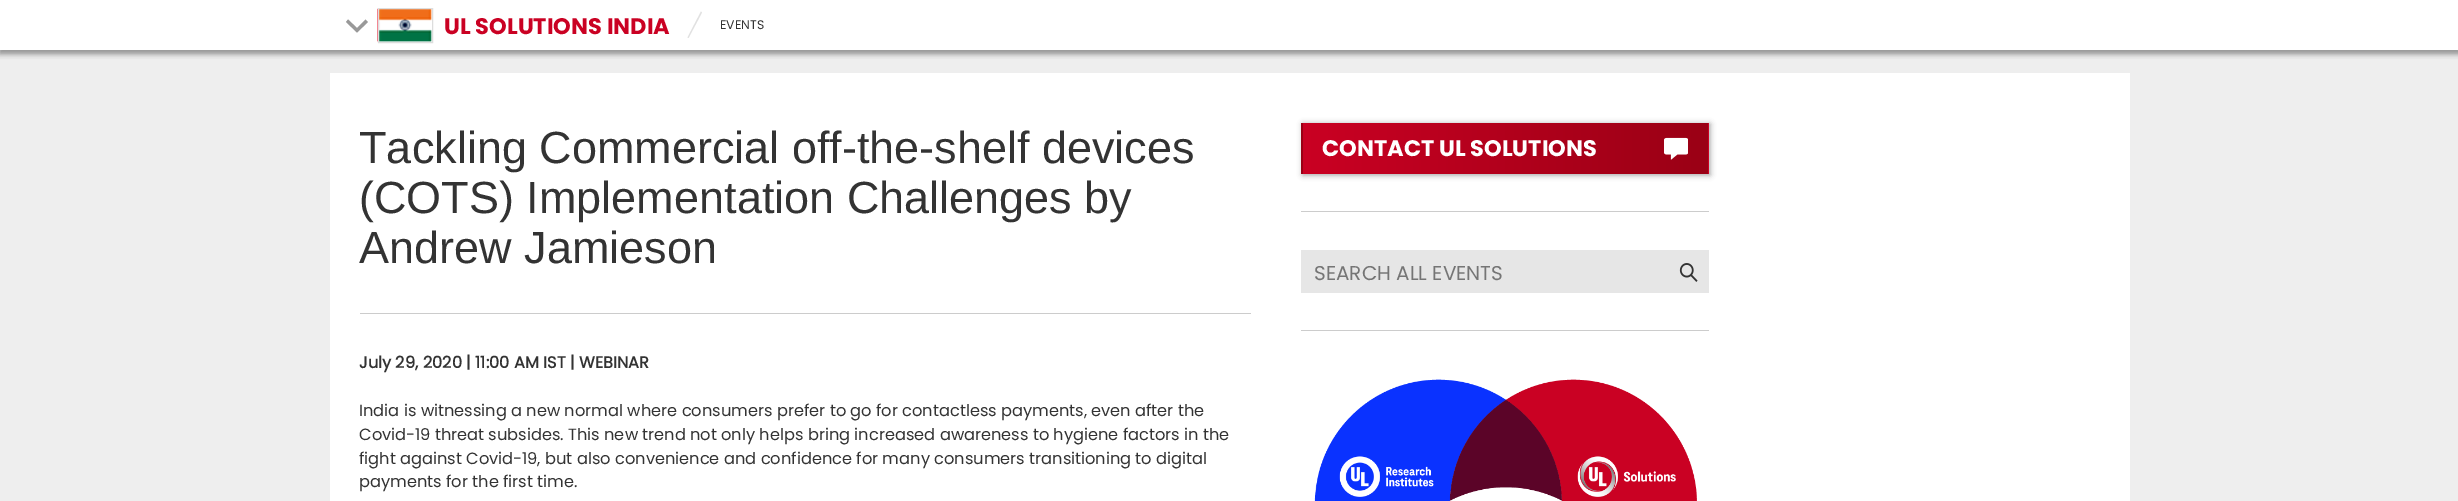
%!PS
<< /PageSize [2458 501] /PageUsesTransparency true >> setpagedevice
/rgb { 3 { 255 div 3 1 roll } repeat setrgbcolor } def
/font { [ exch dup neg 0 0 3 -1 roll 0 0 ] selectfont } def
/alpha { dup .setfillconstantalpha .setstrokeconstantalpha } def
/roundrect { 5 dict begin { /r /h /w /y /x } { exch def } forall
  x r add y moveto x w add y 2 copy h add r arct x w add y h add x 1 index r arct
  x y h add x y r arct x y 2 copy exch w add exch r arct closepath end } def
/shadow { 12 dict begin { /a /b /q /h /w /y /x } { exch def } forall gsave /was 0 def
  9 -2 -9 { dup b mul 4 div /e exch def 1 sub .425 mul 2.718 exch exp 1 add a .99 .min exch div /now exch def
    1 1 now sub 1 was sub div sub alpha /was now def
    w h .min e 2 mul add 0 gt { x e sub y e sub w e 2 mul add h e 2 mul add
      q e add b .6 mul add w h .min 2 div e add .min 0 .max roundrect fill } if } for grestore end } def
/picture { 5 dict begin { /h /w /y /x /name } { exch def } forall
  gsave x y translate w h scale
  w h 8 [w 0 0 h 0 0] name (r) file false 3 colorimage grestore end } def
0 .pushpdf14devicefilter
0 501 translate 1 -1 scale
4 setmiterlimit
238 238 238 rgb
0 0 2458 501 rectfill
153 153 153 rgb
0 3 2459 50 0 3 1 shadow
255 255 255 rgb
0 0 2458 50 rectfill
gsave
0 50 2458 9 rectclip
153 153 153 rgb
0 3 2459 50 0 3 1 shadow
grestore
153 153 153 rgb
346 22 moveto 348 19.5 lineto 357 28 lineto 365.5 19.5 lineto 368 22 lineto 357 32.5 lineto closepath fill
(img/1.rgb) 377 8 55 35 picture
221 221 221 rgb
378.5 8.5 54 34 rectstroke
225 225 225 rgb
688.5 38 moveto 702 12.5 lineto 701 11.5 lineto 687.5 37.5 lineto closepath fill
255 255 255 rgb
330 73 1800 428 rectfill
204 204 204 rgb
360 313 891 1 rectfill
153 153 153 rgb
1303 124 407 51 0 3 1 shadow
gsave 1301 123 moveto 1303 123 lineto 1303 174 lineto 1301 174 lineto closepath clip newpath
<< /ShadingType 2 /ColorSpace /DeviceRGB /Coords [898 148 1303 148] /Extend [true true] /Function << /FunctionType 2 /Domain [0 1] /C0 [0.792 0.004 0.137] /C1 [0.604 0 0.082] /N 1 >> >> shfill grestore
gsave 1303 123 moveto 1708 123 lineto 1708 174 lineto 1303 174 lineto closepath clip newpath
<< /ShadingType 2 /ColorSpace /DeviceRGB /Coords [1303 148 1708 148] /Extend [true true] /Function << /FunctionType 2 /Domain [0 1] /C0 [0.792 0.004 0.137] /C1 [0.604 0 0.082] /N 1 >> >> shfill grestore
gsave 1708 123 moveto 1709 123 lineto 1709 174 lineto 1708 174 lineto closepath clip newpath
<< /ShadingType 2 /ColorSpace /DeviceRGB /Coords [1708 148 2113 148] /Extend [true true] /Function << /FunctionType 2 /Domain [0 1] /C0 [0.792 0.004 0.137] /C1 [0.604 0 0.082] /N 1 >> >> shfill grestore
(img/2.rgb) 1664 137 24 23 picture
204 204 204 rgb
1301 211 408 1 rectfill
230 230 230 rgb
1301 250 408 43 rectfill
(img/3.rgb) 1679 263 19 19 picture
204 204 204 rgb
1301 330 408 1 rectfill
(img/4.rgb) 1314 379 383 122 picture
/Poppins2-Bold 22.5 font
202 1 35 rgb
444 34 moveto (UL SOLUTIONS INDIA) show
/Poppins-Regular 12.5 font
51 51 51 rgb
720 29 moveto (EVENTS) show
/LiberationSans-Regular 45 font
[
  [(Tackling Commercial off-the-shelf devices) 359 163]
  [(\(COTS\) Implementation Challenges by) 359 213]
  [(Andrew Jamieson) 359 263]
] { aload pop moveto show } forall
/Poppins-Bold 16.25 font
359 368 moveto (July 29, 2020 | 11:00 AM IST | WEBINAR) show
/Poppins-Regular 16.25 font
[
  [(India is witnessing a new normal where consumers prefer to go for contactless payments, even after the) 359 416]
  [(Covid-19 threat subsides. This new trend not only helps bring increased awareness to hygiene factors in the) 359 440]
  [(fight against Covid-19, but also convenience and confidence for many consumers transitioning to digital) 359 464]
  [(payments for the first time.) 359 487]
] { aload pop moveto show } forall
/Poppins2-Bold 22.5 font
255 255 255 rgb
1322 156 moveto (CONTACT UL SOLUTIONS) show
/Poppins-Regular 20 font
117 117 117 rgb
1314 280 moveto (SEARCH ALL EVENTS) show
.poppdf14devicefilter showpage
